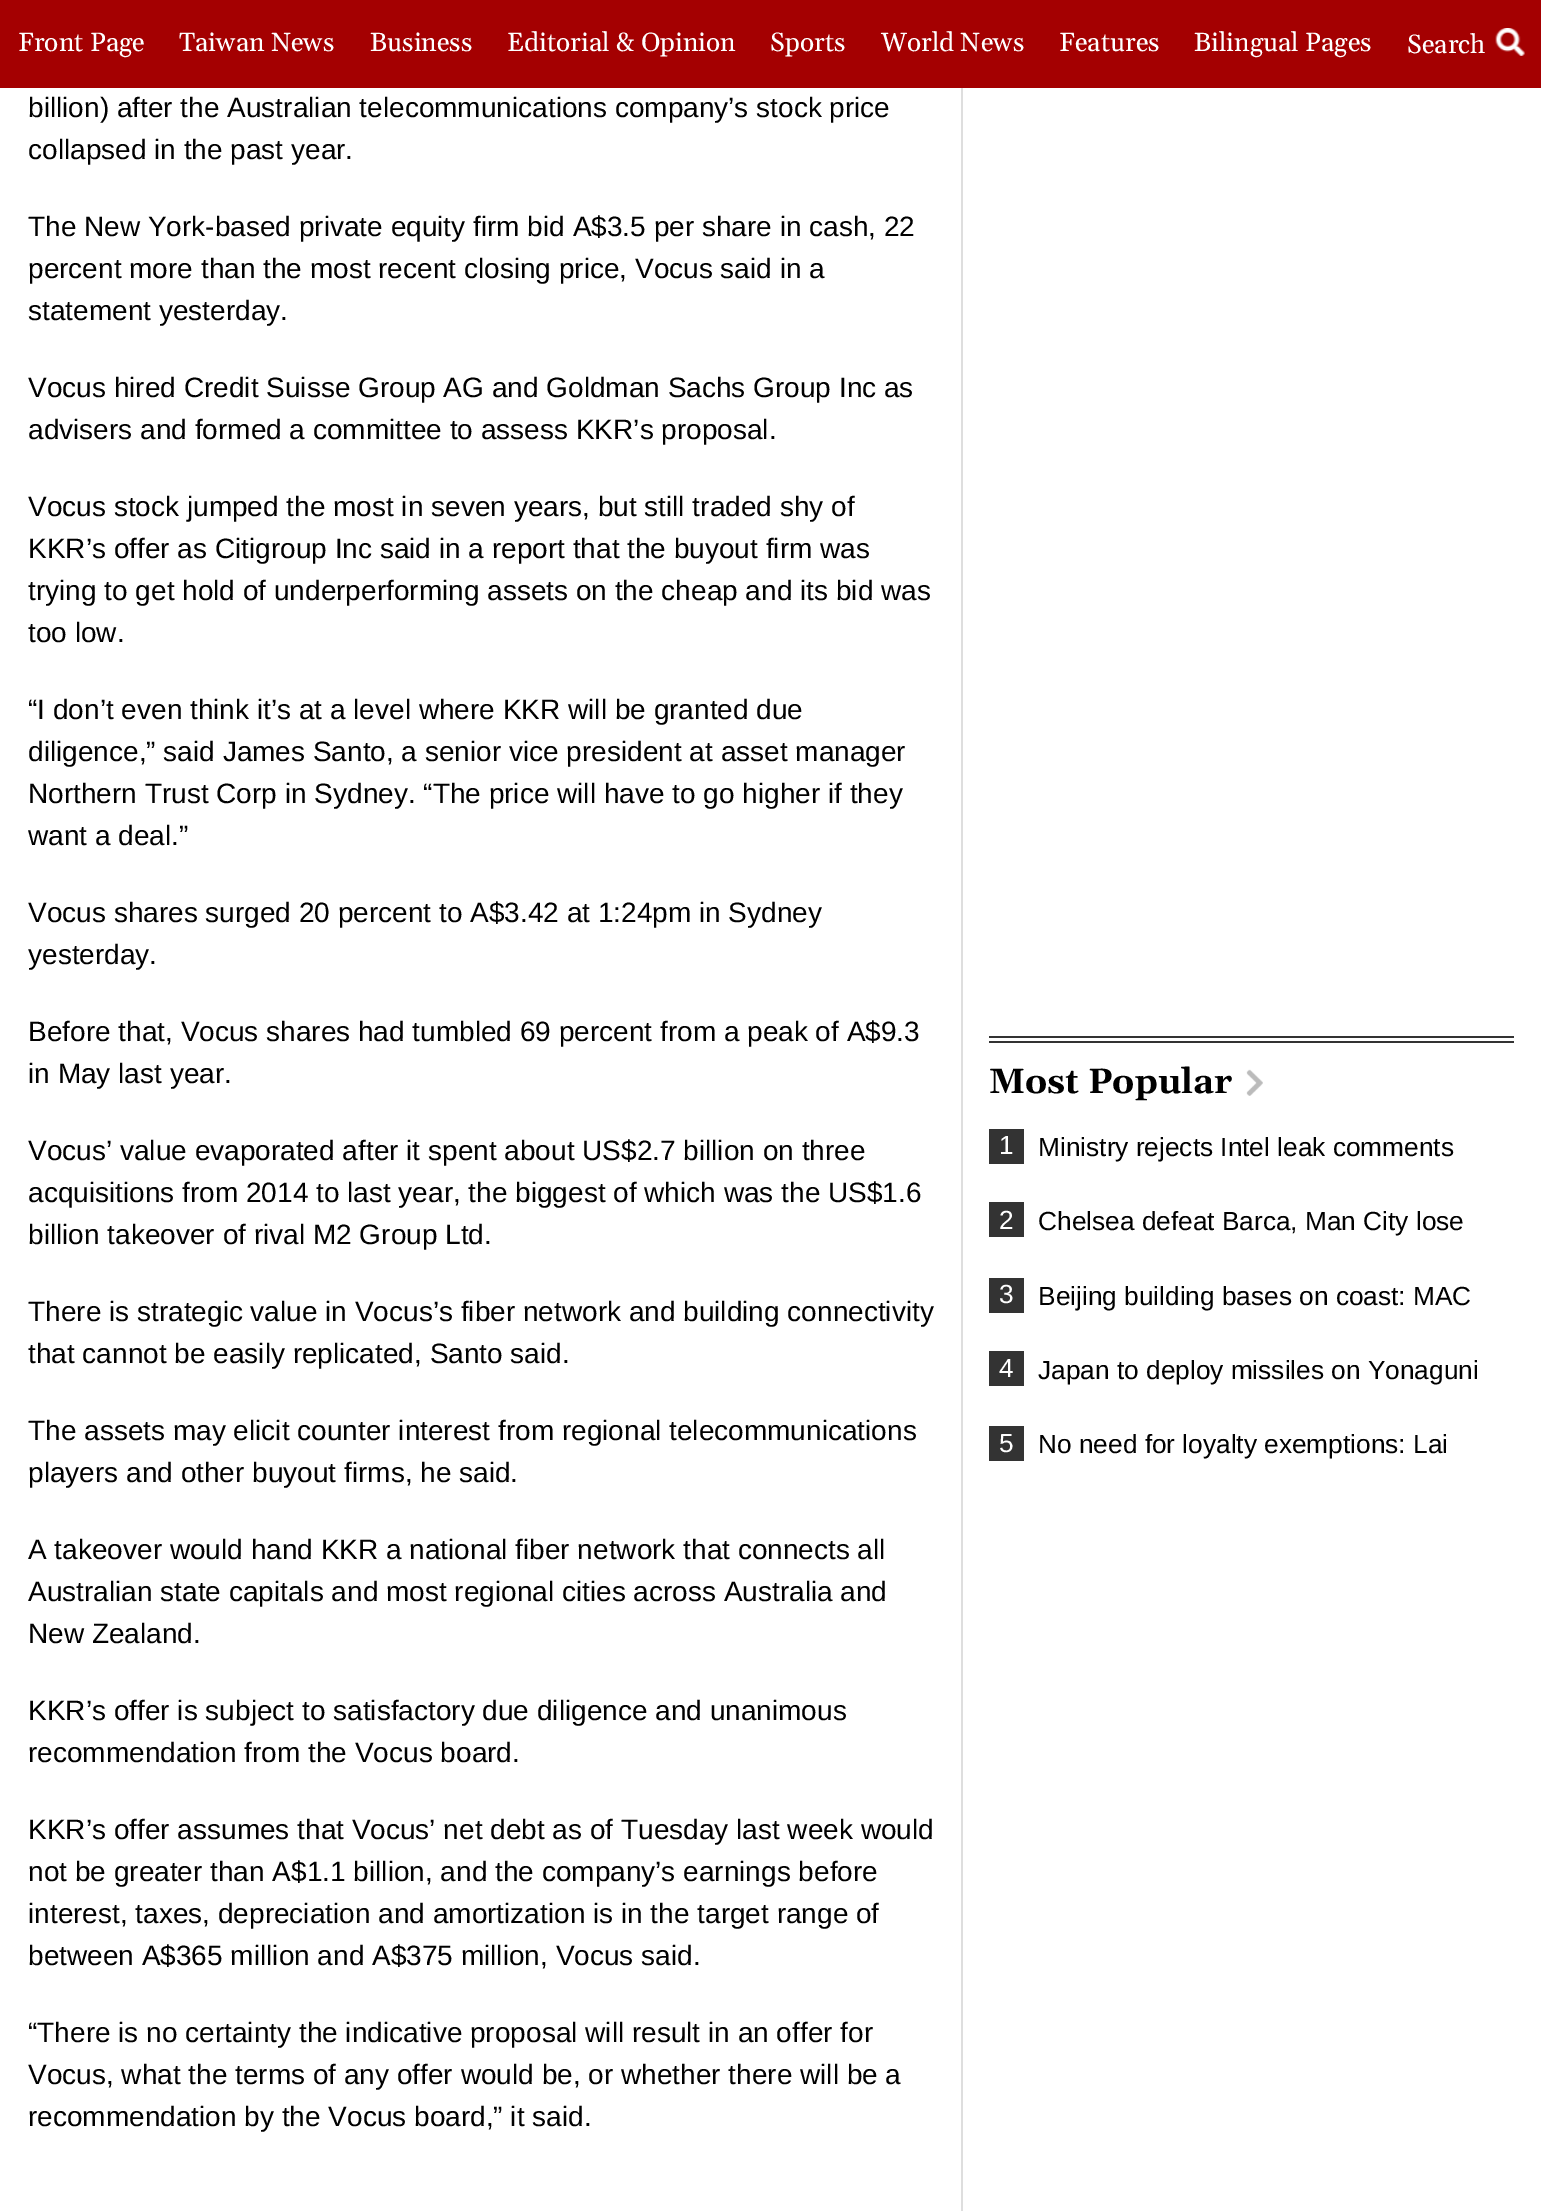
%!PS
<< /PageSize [1541 2211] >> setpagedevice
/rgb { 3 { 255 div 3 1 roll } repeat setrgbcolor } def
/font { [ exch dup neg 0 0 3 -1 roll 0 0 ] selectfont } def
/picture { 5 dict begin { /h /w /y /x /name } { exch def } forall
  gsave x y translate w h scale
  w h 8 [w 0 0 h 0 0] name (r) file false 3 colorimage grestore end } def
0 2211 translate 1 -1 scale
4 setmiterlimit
255 255 255 rgb
0 0 1541 2211 rectfill
164 0 1 rgb
0 0 1541 88 rectfill
(img/1.rgb) 1495 28 30 28 picture
[
  [961 88 2 2123 222 222 222]
  [989 1036 525 2 51 51 51]
  [989 1041 525 2 51 51 51]
] { aload pop rgb rectfill } forall
(img/2.rgb) 1246 1069 17 27 picture
[
  [989 1129 35 35 51 51 51]
  [989 1202 35 35 51 51 51]
  [989 1278 35 35 51 51 51]
  [989 1351 35 35 51 51 51]
  [989 1426 35 35 51 51 51]
] { aload pop rgb rectfill } forall
/Gelasio-Regular 26.25 font
255 255 255 rgb
[
  [(Front Page) 18 51]
  [(Taiwan News) 179 51]
  [(Business) 370 51]
  [(Editorial & Opinion) 507 51]
  [(Sports) 770 51]
  [(World News) 881 51]
  [(Features) 1059 51]
  [(Bilingual Pages) 1194 51]
  [(Search) 1407 53]
] { aload pop moveto show } forall
/LiberationSans-Regular 28 font
0 0 0 rgb
[
  [(billion\) after the Australian telecommunications company’s stock price) 28 117]
  [(collapsed in the past year.) 28 159]
  [(The New York-based private equity firm bid A$3.5 per share in cash, 22) 28 236]
  [(percent more than the most recent closing price, Vocus said in a) 28 278]
  [(statement yesterday.) 28 320]
  [(Vocus hired Credit Suisse Group AG and Goldman Sachs Group Inc as) 28 397]
  [(advisers and formed a committee to assess KKR’s proposal.) 28 439]
  [(Vocus stock jumped the most in seven years, but still traded shy of) 28 516]
  [(KKR’s offer as Citigroup Inc said in a report that the buyout firm was) 28 558]
  [(trying to get hold of underperforming assets on the cheap and its bid was) 28 600]
  [(too low.) 28 642]
  [(“I don’t even think it’s at a level where KKR will be granted due) 28 719]
  [(diligence,” said James Santo, a senior vice president at asset manager) 28 761]
  [(Northern Trust Corp in Sydney. “The price will have to go higher if they) 28 803]
  [(want a deal.”) 28 845]
  [(Vocus shares surged 20 percent to A$3.42 at 1:24pm in Sydney) 28 922]
  [(yesterday.) 28 964]
  [(Before that, Vocus shares had tumbled 69 percent from a peak of A$9.3) 28 1041]
  [(in May last year.) 28 1083]
  [(Vocus’ value evaporated after it spent about US$2.7 billion on three) 28 1160]
  [(acquisitions from 2014 to last year, the biggest of which was the US$1.6) 28 1202]
  [(billion takeover of rival M2 Group Ltd.) 28 1244]
  [(There is strategic value in Vocus’s fiber network and building connectivity) 28 1321]
  [(that cannot be easily replicated, Santo said.) 28 1363]
  [(The assets may elicit counter interest from regional telecommunications) 28 1440]
  [(players and other buyout firms, he said.) 28 1482]
  [(A takeover would hand KKR a national fiber network that connects all) 28 1559]
  [(Australian state capitals and most regional cities across Australia and) 28 1601]
  [(New Zealand.) 28 1643]
  [(KKR’s offer is subject to satisfactory due diligence and unanimous) 28 1720]
  [(recommendation from the Vocus board.) 28 1762]
  [(KKR’s offer assumes that Vocus’ net debt as of Tuesday last week would) 28 1839]
  [(not be greater than A$1.1 billion, and the company’s earnings before) 28 1881]
  [(interest, taxes, depreciation and amortization is in the target range of) 28 1923]
  [(between A$365 million and A$375 million, Vocus said.) 28 1965]
  [(“There is no certainty the indicative proposal will result in an offer for) 28 2042]
  [(Vocus, what the terms of any offer would be, or whether there will be a) 28 2084]
  [(recommendation by the Vocus board,” it said.) 28 2126]
] { aload pop moveto show } forall
/Gelasio-Bold 35 font
989 1093 moveto (Most Popular) show
/LiberationSans-Regular 26.25 font
255 255 255 rgb
999 1154 moveto (1) show
0 0 0 rgb
1038 1156 moveto (Ministry rejects Intel leak comments) show
255 255 255 rgb
999 1229 moveto (2) show
0 0 0 rgb
1038 1230 moveto (Chelsea defeat Barca, Man City lose) show
255 255 255 rgb
999 1303 moveto (3) show
0 0 0 rgb
1038 1305 moveto (Beijing building bases on coast: MAC) show
255 255 255 rgb
999 1377 moveto (4) show
0 0 0 rgb
1038 1379 moveto (Japan to deploy missiles on Yonaguni) show
255 255 255 rgb
999 1452 moveto (5) show
0 0 0 rgb
1038 1453 moveto (No need for loyalty exemptions: Lai) show
showpage
